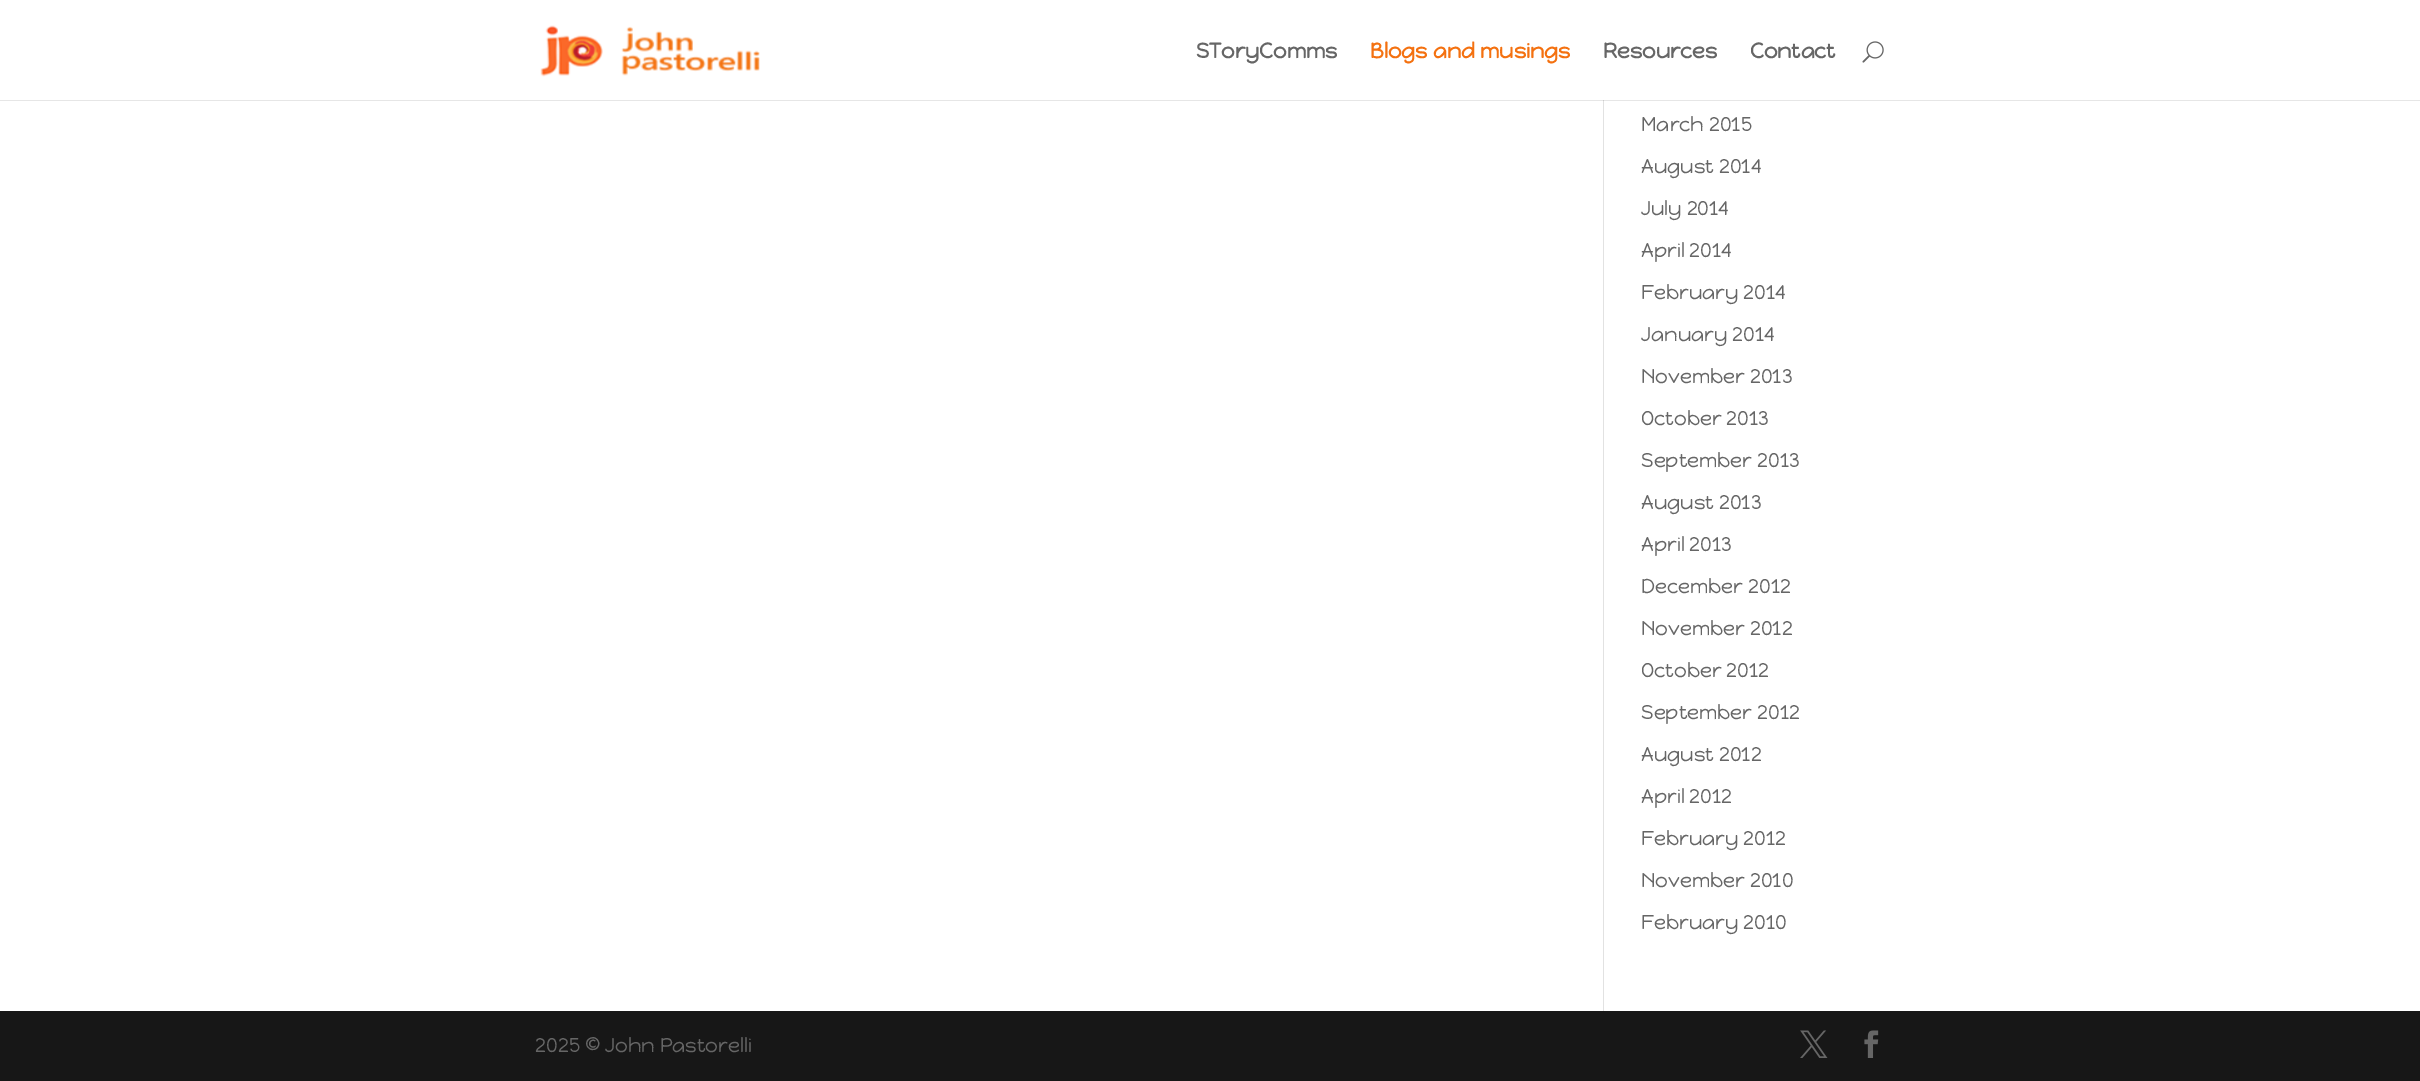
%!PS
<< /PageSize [2420 1081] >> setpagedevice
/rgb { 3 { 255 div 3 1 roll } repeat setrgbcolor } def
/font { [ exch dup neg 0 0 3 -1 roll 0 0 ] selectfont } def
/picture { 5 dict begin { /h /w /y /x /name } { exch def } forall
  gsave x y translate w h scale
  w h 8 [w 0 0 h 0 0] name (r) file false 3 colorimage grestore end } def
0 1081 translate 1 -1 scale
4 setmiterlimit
255 255 255 rgb
0 0 2420 1081 rectfill
230 230 230 rgb
0 100 2420 1 rectfill
(img/1.rgb) 540 25 220 52 picture
(img/2.rgb) 1862 41 22 22 picture
[
  [1603 101 1 910 226 226 226]
  [1603 100 1 1 203 203 203]
  [0 1011 2420 70 23 23 23]
] { aload pop rgb rectfill } forall
(img/3.rgb) 1800 1030 28 28 picture
(img/4.rgb) 1864 1030 15 28 picture
/HappyMonkey-Bold 21.25 font
102 102 102 rgb
1196 58 moveto (SToryComms) show
244 113 16 rgb
1370 58 moveto (Blogs and musings) show
102 102 102 rgb
1603 58 moveto (Resources) show
1750 58 moveto (Contact) show
/HappyMonkey-Regular 20 font
[
  [(March 2015) 1641 131]
  [(August 2014) 1641 173]
  [(July 2014) 1641 215]
  [(April 2014) 1641 257]
  [(February 2014) 1641 299]
  [(January 2014) 1641 341]
  [(November 2013) 1641 383]
  [(October 2013) 1641 425]
  [(September 2013) 1641 467]
  [(August 2013) 1641 509]
  [(April 2013) 1641 551]
  [(December 2012) 1641 593]
  [(November 2012) 1641 635]
  [(October 2012) 1641 677]
  [(September 2012) 1641 719]
  [(August 2012) 1641 761]
  [(April 2012) 1641 803]
  [(February 2012) 1641 845]
  [(November 2010) 1641 887]
  [(February 2010) 1641 929]
  [(2025 © John Pastorelli) 535 1052]
] { aload pop moveto show } forall
showpage
